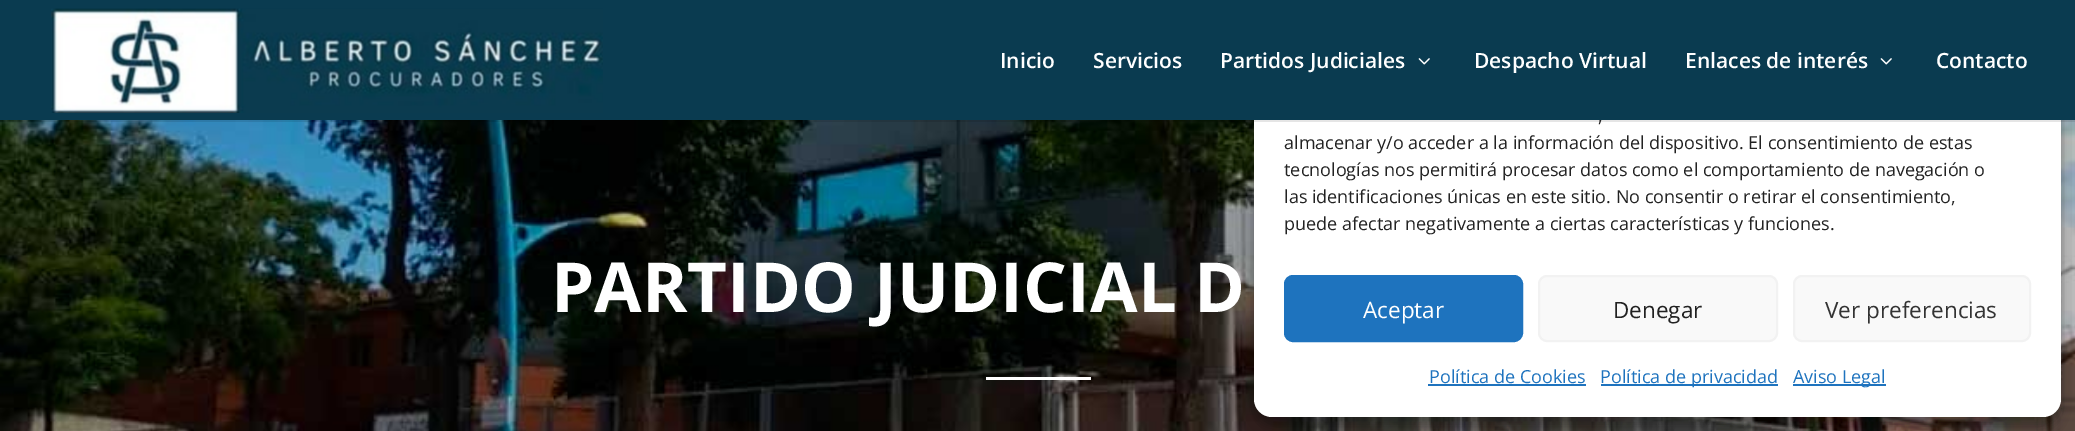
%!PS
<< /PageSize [2075 431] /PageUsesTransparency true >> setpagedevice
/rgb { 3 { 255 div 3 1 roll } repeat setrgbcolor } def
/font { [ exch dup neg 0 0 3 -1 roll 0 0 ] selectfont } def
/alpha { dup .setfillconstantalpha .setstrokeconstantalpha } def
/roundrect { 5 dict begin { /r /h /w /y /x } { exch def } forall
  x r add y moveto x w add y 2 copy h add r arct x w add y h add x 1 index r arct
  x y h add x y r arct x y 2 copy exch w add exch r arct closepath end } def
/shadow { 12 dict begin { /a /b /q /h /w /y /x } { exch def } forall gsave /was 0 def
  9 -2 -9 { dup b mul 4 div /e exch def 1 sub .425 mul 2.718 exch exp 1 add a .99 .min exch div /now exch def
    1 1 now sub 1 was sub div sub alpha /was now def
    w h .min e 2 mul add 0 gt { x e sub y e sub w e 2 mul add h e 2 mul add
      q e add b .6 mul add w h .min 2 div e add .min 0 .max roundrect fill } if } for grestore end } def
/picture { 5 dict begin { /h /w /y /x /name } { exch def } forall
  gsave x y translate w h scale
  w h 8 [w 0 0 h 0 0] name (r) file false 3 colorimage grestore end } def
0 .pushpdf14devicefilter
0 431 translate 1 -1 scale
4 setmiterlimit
255 255 255 rgb
0 0 2075 431 rectfill
(img/3.rgb) 0 120 2075 311 picture
0 0 0 rgb
1254 24 807 402 18 4.5 0.23 shadow
1254 30 807 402 18 15 0.19 shadow
255 255 255 rgb
1254 15 807 402 18 roundrect fill
0.1 alpha
0 0 0 rgb
0 120 2075 2 rectfill
1 alpha
255 255 255 rgb
986 377 105 3 rectfill
30 115 190 rgb
1285 276 237 65 8 roundrect gsave fill grestore
2 setlinewidth
stroke
249 249 249 rgb
1539 276 238 65 8 roundrect gsave fill grestore
242 242 242 rgb
stroke
249 249 249 rgb
1794 276 236 65 8 roundrect gsave fill grestore
242 242 242 rgb
stroke
[
  [1428 384 158 2 30 115 190]
  [1601 384 177 2 30 115 190]
  [1793 384 93 2 30 115 190]
] { aload pop rgb rectfill } forall
/OpenSans-Bold 69 font
255 255 255 rgb
551 312 moveto (PARTIDO JUDICIAL D) show
/OpenSans-Regular 18 font
34 34 34 rgb
1598 122 moveto (,) show
10 59 80 rgb
0 0 2075 120 rectfill
/OpenSans-SemiBold 21 font
255 255 255 rgb
1936 68 moveto (Contacto) show
(img/2.rgb) 1880 58 12 7 picture
1685 68 moveto (Enlaces de interés) show
1474 68 moveto (Despacho Virtual) show
(img/2.rgb) 1418 58 12 7 picture
[
  [(Partidos Judiciales) 1220 68]
  [(Servicios) 1093 68]
  [(Inicio) 1000 68]
] { aload pop moveto show } forall
(img/1.rgb) 51 8 552 105 picture
/OpenSans-Regular 18 font
34 34 34 rgb
[
  [(almacenar y/o acceder a la información del dispositivo. El consentimiento de estas) 1284 149]
  [(tecnologías nos permitirá procesar datos como el comportamiento de navegación o) 1284 176]
  [(las identificaciones únicas en este sitio. No consentir o retirar el consentimiento,) 1284 203]
  [(puede afectar negativamente a ciertas características y funciones.) 1284 230]
] { aload pop moveto show } forall
/OpenSans-Regular 22.5 font
255 255 255 rgb
1363 318 moveto (Aceptar) show
34 34 34 rgb
1613 318 moveto (Denegar) show
51 51 51 rgb
1825 318 moveto (Ver preferencias) show
/OpenSans-Regular 18 font
30 115 190 rgb
[
  [(Política de Cookies) 1429 383]
  [(Política de privacidad) 1600 383]
  [(Aviso Legal) 1793 383]
] { aload pop moveto show } forall
.poppdf14devicefilter showpage
